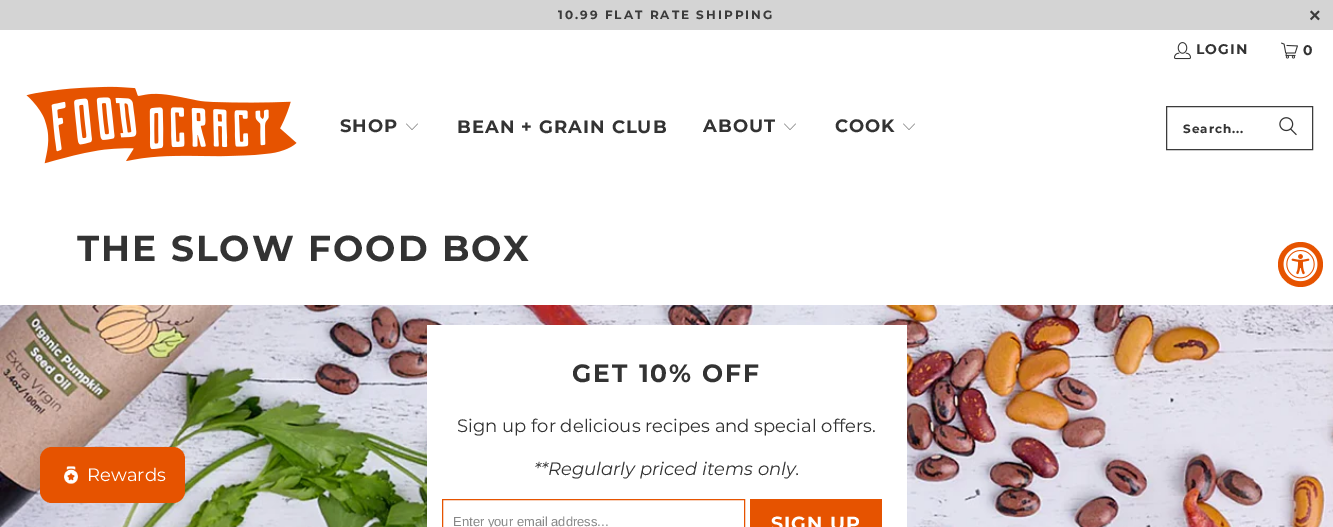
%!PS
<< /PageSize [1333 527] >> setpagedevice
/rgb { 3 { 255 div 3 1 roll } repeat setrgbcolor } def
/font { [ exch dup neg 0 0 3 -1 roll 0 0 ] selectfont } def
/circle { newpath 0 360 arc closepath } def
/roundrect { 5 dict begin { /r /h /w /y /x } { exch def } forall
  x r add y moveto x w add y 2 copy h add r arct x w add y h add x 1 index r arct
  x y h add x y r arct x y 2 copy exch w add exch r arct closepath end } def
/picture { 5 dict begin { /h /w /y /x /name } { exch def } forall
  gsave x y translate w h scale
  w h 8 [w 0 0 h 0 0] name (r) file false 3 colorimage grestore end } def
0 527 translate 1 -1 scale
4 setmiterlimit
255 255 255 rgb
0 0 1333 527 rectfill
212 212 212 rgb
0 0 1333 30 rectfill
(img/1.rgb) 1174 42 17 18 picture
(img/2.rgb) 1281 42 17 17 picture
(img/3.rgb) 26 86 271 78 picture
(img/4.rgb) 406 123 12 7 picture
(img/4.rgb) 784 123 12 7 picture
(img/4.rgb) 903 123 12 7 picture
59 59 59 rgb
1166.5 106.5 146 43 rectstroke
(img/5.rgb) 1279 117 18 19 picture
(img/6.rgb) 0 305 1333 222 picture
255 255 255 rgb
427 325 480 202 rectfill
230 83 0 rgb
442.5 499.5 302 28 rectstroke
750 499 132 28 rectfill
1300.5 264.5 22.5 circle fill
(img/7.rgb) 1283 247 35 35 picture
40 447 145 56 12 roundrect fill
(img/8.rgb) 64 466 14 18 picture
/Montserrat-Bold 12 font
59 59 59 rgb
558 19 moveto 2 0 (10.99 FLAT RATE SHIPPING) ashow
/LiberationSans-Bold 20 font
1309 22 moveto 2 0 (×) ashow
/Montserrat-Bold 14 font
51 51 51 rgb
1196 54 moveto 1 0 (LOGIN) ashow
1303 55 moveto 1 0 (0) ashow
/Montserrat-Bold 18 font
340 132 moveto 1 0 (SHOP) ashow
457 133 moveto 1 0 (BEAN + GRAIN CLUB) ashow
703 132 moveto 1 0 (ABOUT) ashow
835 132 moveto 1 0 (COOK) ashow
/Montserrat-Bold 12 font
1183 133 moveto 1 0 (Search...) ashow
/Montserrat-Bold 36 font
77 261 moveto 2 0 (THE SLOW FOOD BOX) ashow
/Montserrat-Bold 25 font
572 382 moveto 2 0 (GET 10% OFF) ashow
/Montserrat-Regular 18 font
457 432 moveto (Sign up for delicious recipes and special offers.) show
/Montserrat-Italic 18 font
534 475 moveto (**Regularly priced items only.) show
/LiberationSans-Regular 13 font
136 136 136 rgb
453 526 moveto (Enter your email address...) show
/Montserrat-Bold 19 font
255 255 255 rgb
771 530 moveto 1 0 (SIGN UP) ashow
/Montserrat-Regular 18 font
87 481 moveto (Rewards) show
showpage
